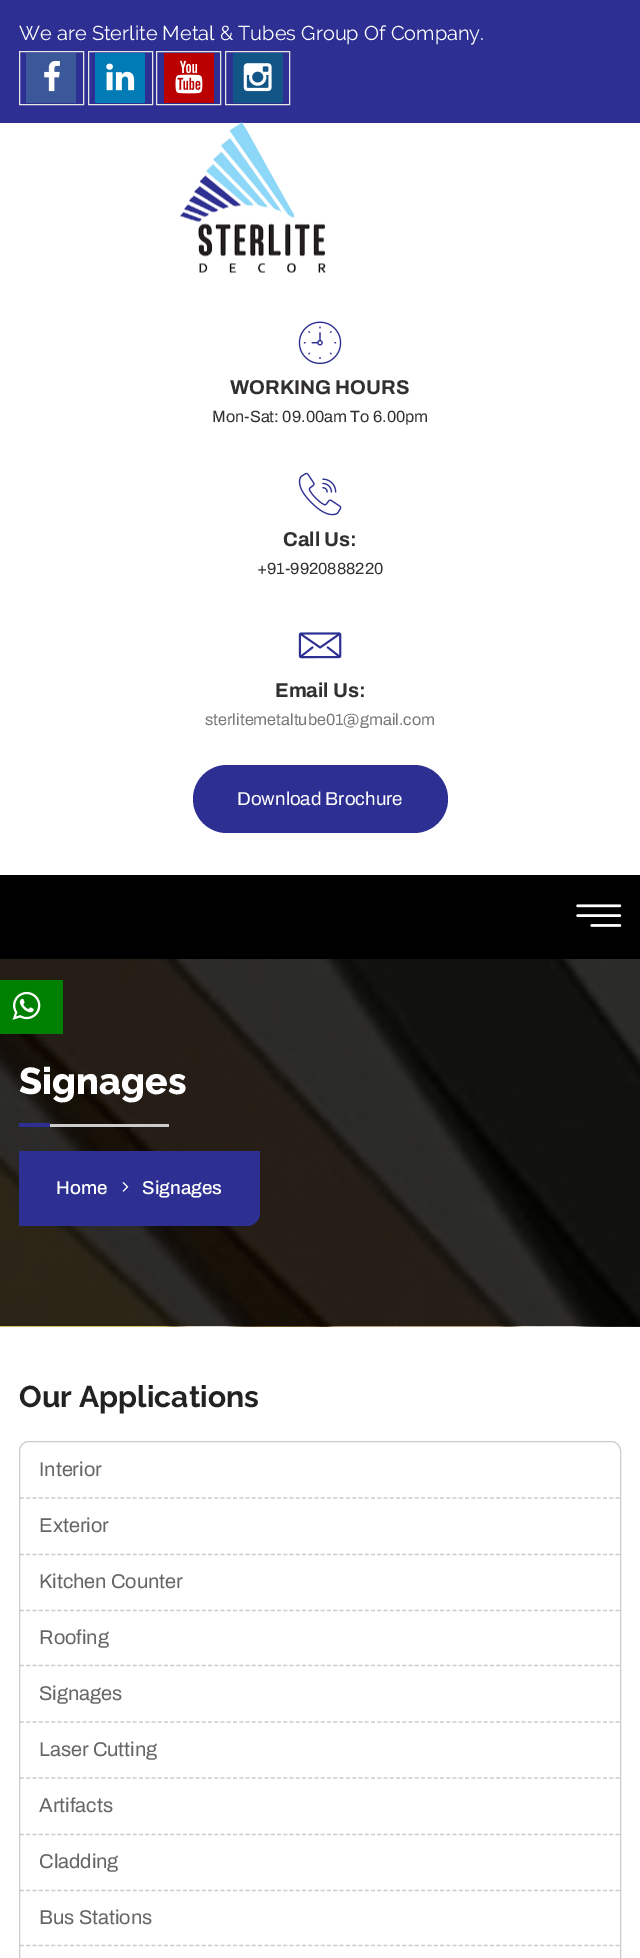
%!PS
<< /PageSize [640 1958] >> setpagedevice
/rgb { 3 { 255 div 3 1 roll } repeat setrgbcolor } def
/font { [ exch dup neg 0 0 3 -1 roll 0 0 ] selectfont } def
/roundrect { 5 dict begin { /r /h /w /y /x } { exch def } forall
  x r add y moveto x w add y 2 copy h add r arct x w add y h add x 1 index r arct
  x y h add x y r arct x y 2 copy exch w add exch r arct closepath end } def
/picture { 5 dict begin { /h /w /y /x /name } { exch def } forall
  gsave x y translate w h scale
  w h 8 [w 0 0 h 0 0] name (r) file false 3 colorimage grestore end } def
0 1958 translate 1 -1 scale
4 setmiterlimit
255 255 255 rgb
0 0 640 1958 rectfill
45 48 146 rgb
0 0 640 123 rectfill
231 231 231 rgb
19.5 51.5 64 53 rectstroke
59 89 152 rgb
26 53 50 50 rectfill
(img/1.rgb) 44 60 16 32 picture
231 231 231 rgb
88.5 51.5 64 53 rectstroke
0 123 181 rgb
95 53 50 50 rectfill
(img/2.rgb) 106 63 29 28 picture
231 231 231 rgb
156.5 51.5 64 53 rectstroke
187 0 0 rgb
164 53 50 50 rectfill
(img/3.rgb) 175 60 28 34 picture
231 231 231 rgb
225.5 51.5 64 53 rectstroke
18 86 136 rgb
233 53 50 50 rectfill
(img/4.rgb) 243 63 29 29 picture
(img/5.rgb) 180 122 146 151 picture
(img/6.rgb) 298 321 44 44 picture
(img/7.rgb) 298 472 44 44 picture
(img/8.rgb) 298 632 44 27 picture
45 48 146 rgb
193 765 255 68 34 roundrect fill
0 0 0 rgb
0 875 640 84 rectfill
(img/9.rgb) 576 904 46 23 picture
(img/10.rgb) 0 959 640 368 picture
45 48 146 rgb
19 1123 31 4 rectfill
204 204 204 rgb
50 1124 119 3 rectfill
45 48 146 rgb
19 1151 moveto 260 1151 lineto 260 1213 lineto 260 1220 254 1226 247 1226 curveto 19 1226 lineto closepath fill
(img/11.rgb) 122 1182 7 10 picture
204 204 204 rgb
19.5 1441.5 601 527 9.5 roundrect stroke
1.2 setlinewidth
[3.75 2.52] 0 setdash
20 1498 moveto 620 1498 lineto stroke
20 1554.5 moveto 620 1554.5 lineto stroke
20 1610.5 moveto 620 1610.5 lineto stroke
20 1665.5 moveto 620 1665.5 lineto stroke
20 1722 moveto 620 1722 lineto stroke
20 1778 moveto 620 1778 lineto stroke
20 1834.5 moveto 620 1834.5 lineto stroke
20 1890.5 moveto 620 1890.5 lineto stroke
20 1945.5 moveto 620 1945.5 lineto stroke
0 128 0 rgb
0 980 63 54 rectfill
(img/12.rgb) 12 991 29 29 picture
/Raleway-Regular 20 font
255 255 255 rgb
19 40 moveto (We are Sterlite Metal & Tubes Group Of Company.) show
/Archivo-Bold 20 font
50 47 47 rgb
230 394 moveto (WORKING HOURS) show
/Archivo-Regular 16.25 font
212 422 moveto (Mon-Sat: 09.00am To 6.00pm) show
/Archivo-Bold 20 font
283 546 moveto (Call Us:) show
/Archivo-Regular 16.25 font
257 574 moveto (+91-9920888220) show
/Archivo-Bold 20 font
275 697 moveto (Email Us:) show
/Archivo-Regular 16.25 font
119 119 119 rgb
205 725 moveto (sterlitemetaltube01@gmail.com) show
/Archivo-Regular 18.75 font
255 255 255 rgb
237 805 moveto (Download Brochure) show
/Raleway-ExtraBold 37.5 font
19 1094 moveto (Signages) show
/Archivo-Medium 18.75 font
56 1194 moveto (Home) show
142 1194 moveto (Signages) show
/Raleway-Bold 30 font
34 34 34 rgb
19 1407 moveto (Our Applications) show
/Archivo-Regular 20 font
102 102 102 rgb
[
  [(Interior) 39 1476]
  [(Exterior) 39 1532]
  [(Kitchen Counter) 39 1588]
  [(Roofing) 39 1644]
  [(Signages) 39 1700]
  [(Laser Cutting) 39 1756]
  [(Artifacts) 39 1812]
  [(Cladding) 39 1868]
  [(Bus Stations) 39 1924]
] { aload pop moveto show } forall
showpage
